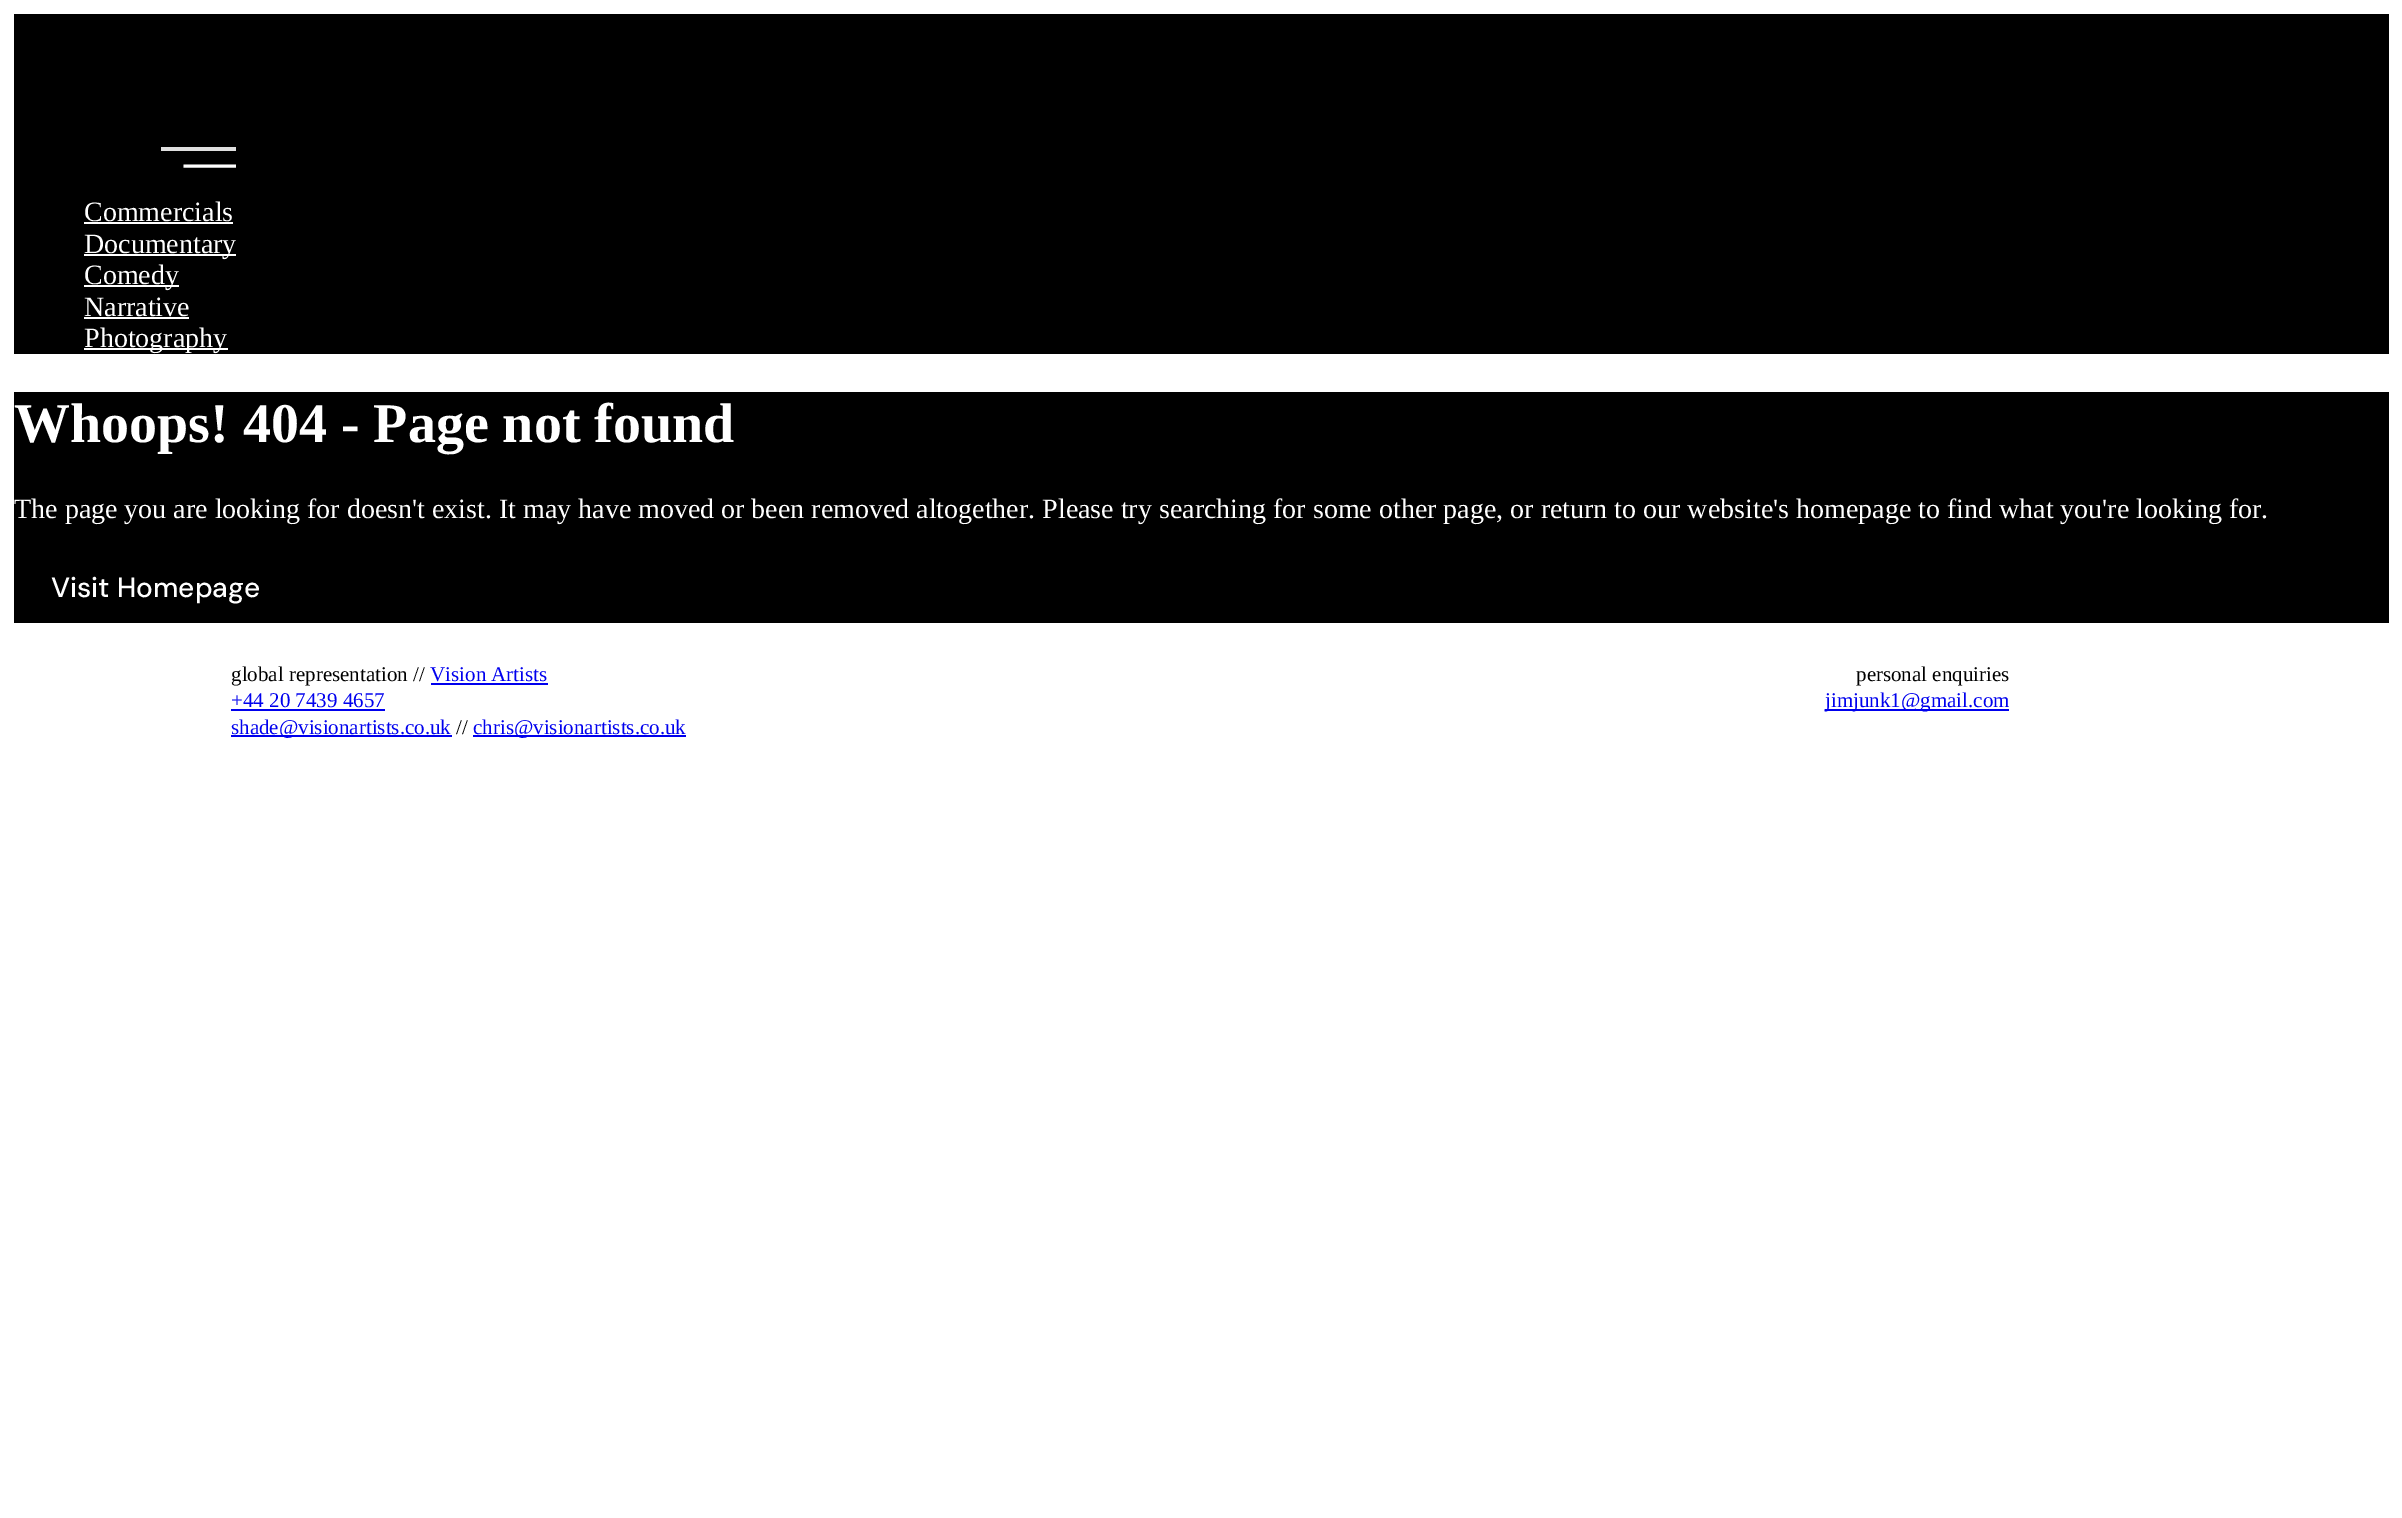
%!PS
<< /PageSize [2402 1518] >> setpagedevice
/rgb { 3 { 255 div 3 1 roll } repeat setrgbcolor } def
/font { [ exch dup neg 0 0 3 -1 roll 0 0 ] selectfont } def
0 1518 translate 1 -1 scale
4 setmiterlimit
255 255 255 rgb
0 0 2402 1518 rectfill
0 0 0 rgb
14 14 2375 340 rectfill
223 223 223 rgb
161 147 75 4 rectfill
255 255 255 rgb
2.9 setlinewidth
236 166 moveto 183.5 166 lineto stroke
[
  [84 222 149 2 255 255 255]
  [84 254 152 2 255 255 255]
  [84 285 95 2 255 255 255]
  [84 317 105 2 255 255 255]
  [84 348 144 2 255 255 255]
  [14 392 2375 231 0 0 0]
  [431 683 117 2 0 0 238]
  [231 709 154 2 0 0 238]
  [231 735 221 2 0 0 238]
  [473 735 213 2 0 0 238]
  [1825 709 184 2 0 0 238]
] { aload pop rgb rectfill } forall
/LiberationSerif-Regular 28 font
255 255 255 rgb
[
  [(Commercials) 84 221]
  [(Documentary) 84 253]
  [(Comedy) 84 284]
  [(Narrative) 84 316]
  [(Photography) 84 347]
] { aload pop moveto show } forall
/LiberationSerif-Bold 56 font
14 442 moveto (Whoops! 404 - Page not found) show
/LiberationSerif-Regular 28 font
14 518 moveto (The page you are looking for doesn't exist. It may have moved or been removed altogether. Please try searching for some other page, or return to our website's homepage to find what you're looking for.) show
/DMSans-Medium 28 font
51 597 moveto (Visit Homepage) show
/LiberationSerif-Regular 21 font
0 0 0 rgb
231 681 moveto (global representation //) show
0 0 238 rgb
[
  [(Vision Artists) 430 681]
  [(+44 20 7439 4657) 231 707]
  [(shade@visionartists.co.uk) 231 734]
] { aload pop moveto show } forall
0 0 0 rgb
456 734 moveto (//) show
0 0 238 rgb
473 734 moveto (chris@visionartists.co.uk) show
0 0 0 rgb
1856 681 moveto (personal enquiries) show
0 0 238 rgb
1825 707 moveto (jimjunk1@gmail.com) show
showpage
